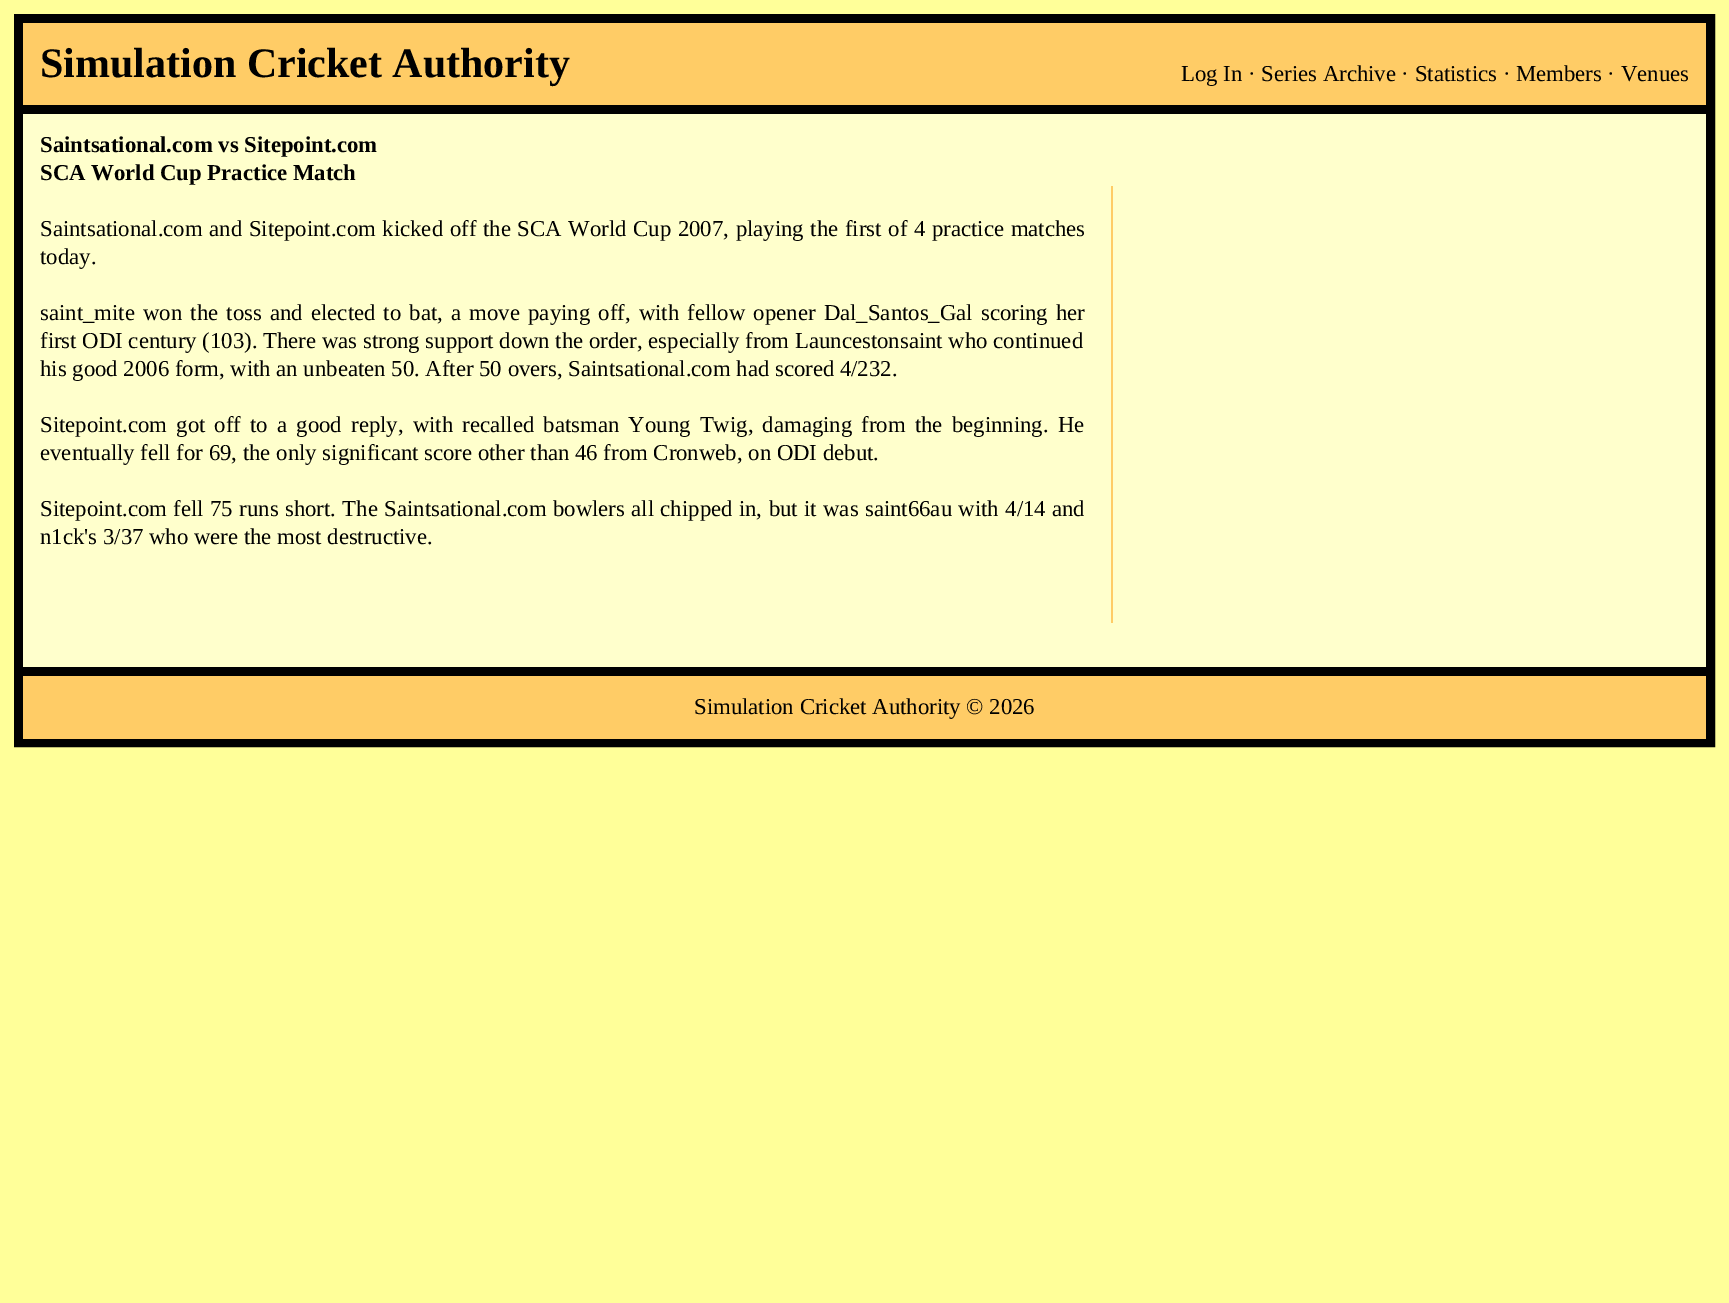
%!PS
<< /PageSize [1729 1303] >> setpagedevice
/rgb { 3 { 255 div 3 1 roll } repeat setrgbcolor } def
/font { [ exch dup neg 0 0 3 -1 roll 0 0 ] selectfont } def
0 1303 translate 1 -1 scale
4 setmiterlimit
255 255 153 rgb
0 0 1729 1303 rectfill
0 0 0 rgb
9 setlinewidth
18.5 18.5 1692 724 rectstroke
[
  [23 23 1683 82 255 204 102]
  [23 105 1683 9 0 0 0]
  [23 114 1683 553 255 255 204]
  [1111 186 2 437 255 204 102]
  [23 676 1683 63 255 204 102]
  [23 667 1683 9 0 0 0]
] { aload pop rgb rectfill } forall
/LiberationSerif-Bold 42 font
40 77 moveto (Simulation Cricket Authority) show
/LiberationSerif-Regular 22.75 font
1181 81 moveto (Log In · Series Archive · Statistics · Members · Venues) show
/LiberationSerif-Bold 22.75 font
40 152 moveto (Saintsational.com vs Sitepoint.com) show
40 180 moveto (SCA World Cup Practice Match) show
/LiberationSerif-Regular 22.75 font
40 236 moveto 1 0 32 (Saintsational.com and Sitepoint.com kicked off the SCA World Cup 2007, playing the first of 4 practice matches) widthshow
40 264 moveto (today.) show
40 320 moveto 2.5 0 32 (saint_mite won the toss and elected to bat, a move paying off, with fellow opener Dal_Santos_Gal scoring her) widthshow
40 348 moveto (first ODI century \(103\). There was strong support down the order, especially from Launcestonsaint who continued) show
40 376 moveto (his good 2006 form, with an unbeaten 50. After 50 overs, Saintsational.com had scored 4/232.) show
40 432 moveto 3.5 0 32 (Sitepoint.com got off to a good reply, with recalled batsman Young Twig, damaging from the beginning. He) widthshow
40 460 moveto (eventually fell for 69, the only significant score other than 46 from Cronweb, on ODI debut.) show
40 516 moveto 0.7 0 32 (Sitepoint.com fell 75 runs short. The Saintsational.com bowlers all chipped in, but it was saint66au with 4/14 and) widthshow
40 544 moveto (n1ck's 3/37 who were the most destructive.) show
694 714 moveto (Simulation Cricket Authority © 2026) show
showpage
